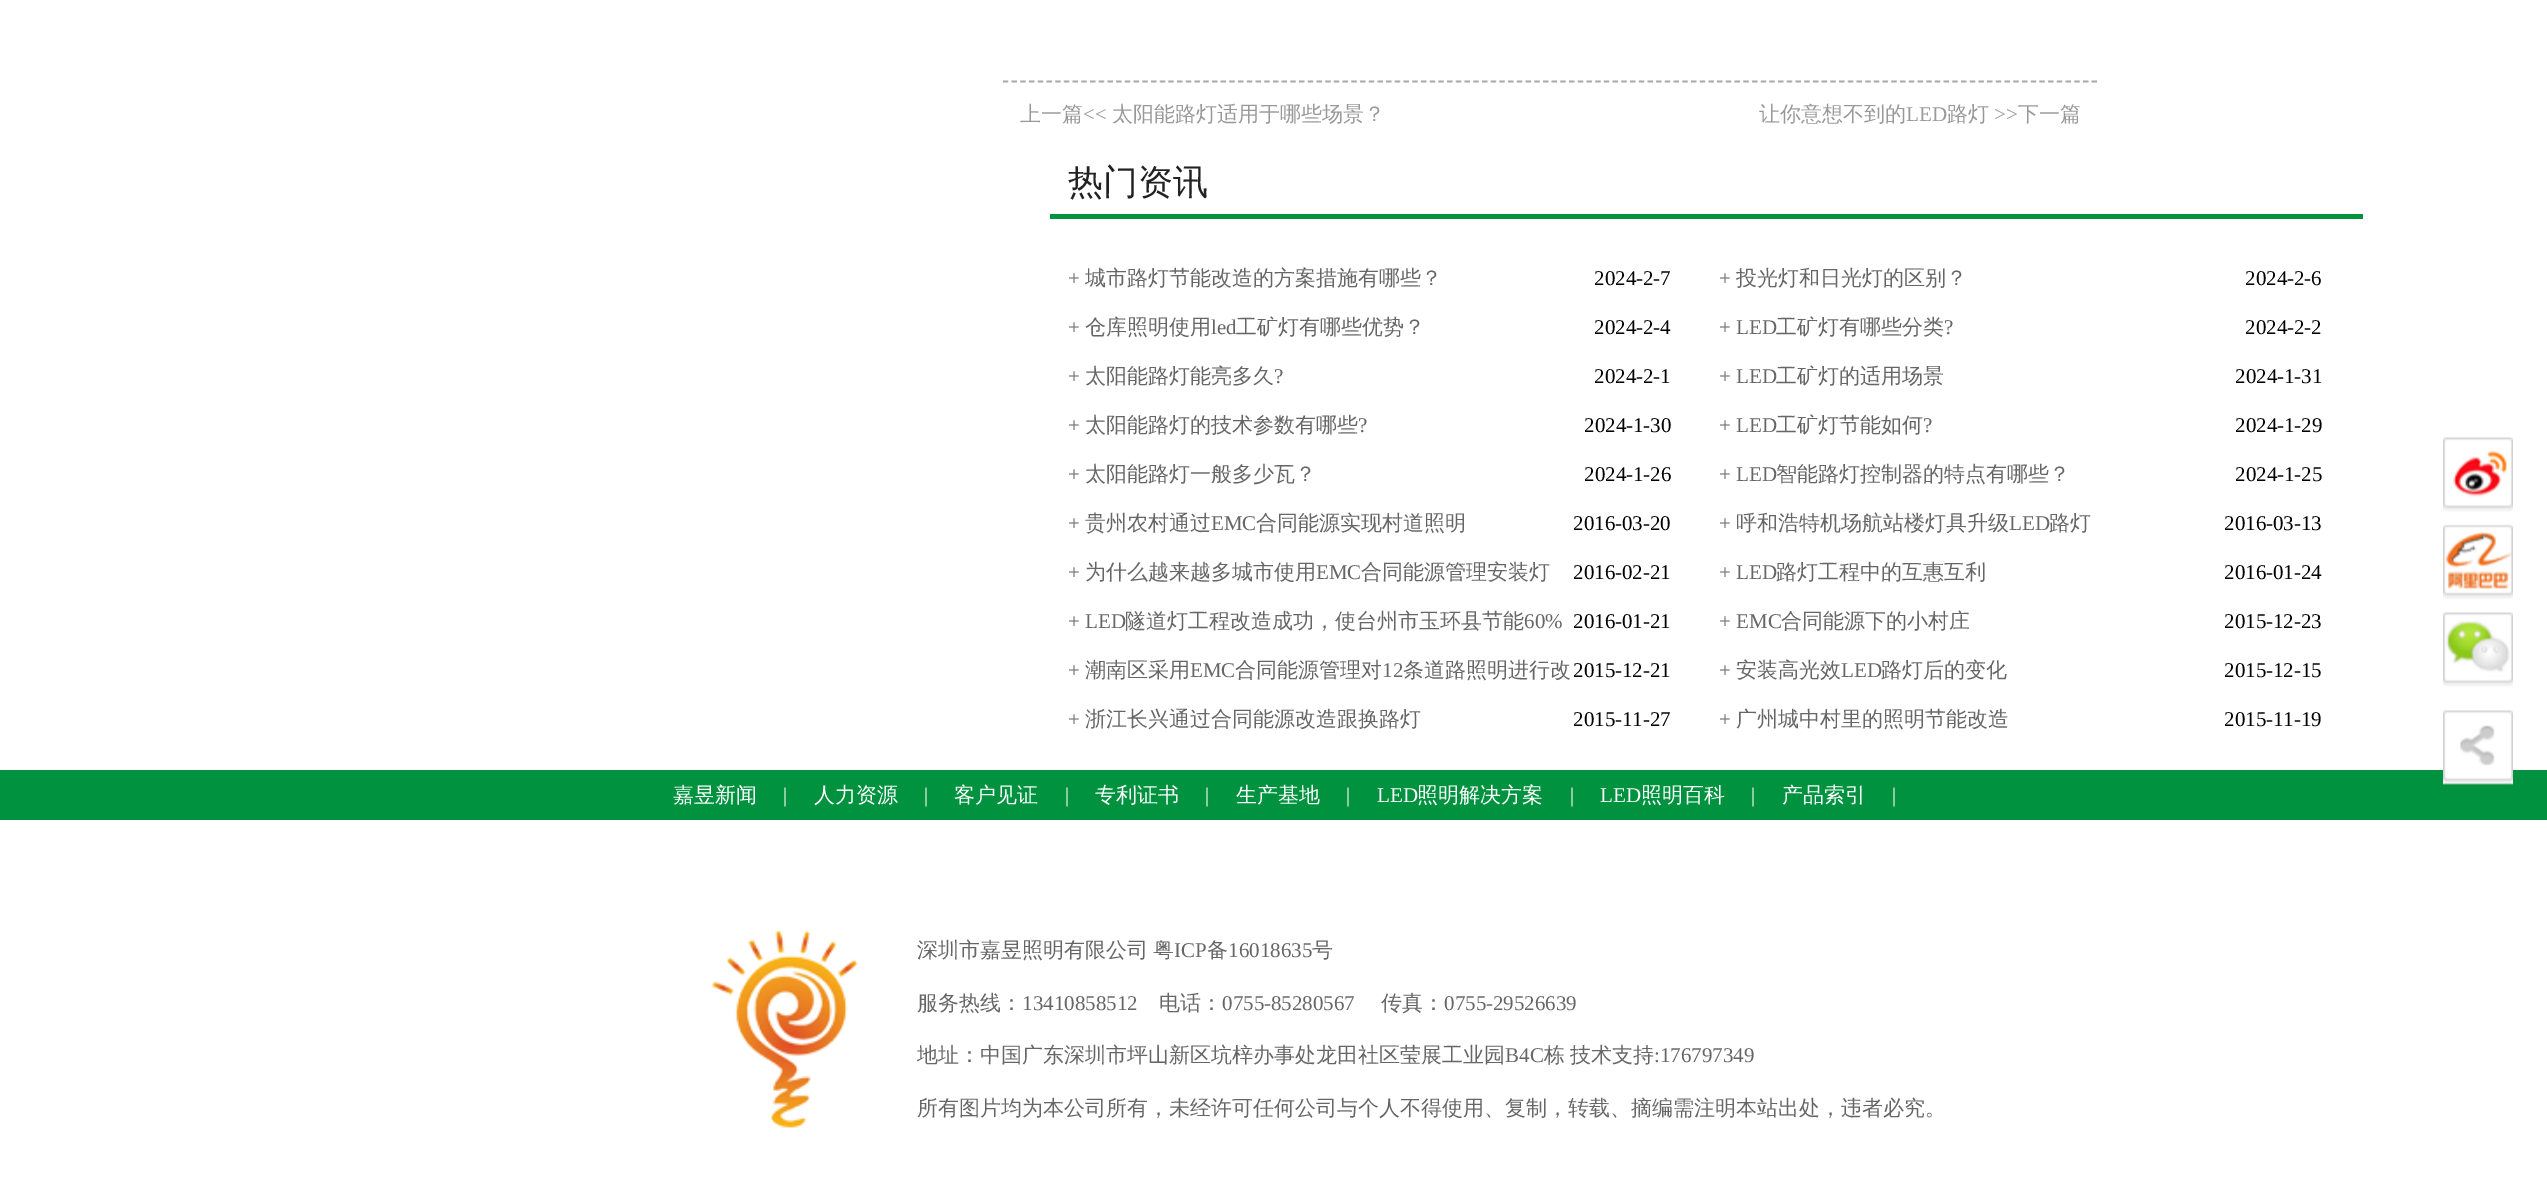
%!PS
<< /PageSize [2547 1199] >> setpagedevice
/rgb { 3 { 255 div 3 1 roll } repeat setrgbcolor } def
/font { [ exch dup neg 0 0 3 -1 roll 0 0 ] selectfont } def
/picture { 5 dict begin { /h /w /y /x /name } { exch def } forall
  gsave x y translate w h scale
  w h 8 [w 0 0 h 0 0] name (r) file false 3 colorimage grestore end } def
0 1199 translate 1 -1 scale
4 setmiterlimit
255 255 255 rgb
0 0 2547 1199 rectfill
170 170 170 rgb
1.8 setlinewidth
[5.25 3.46] 0 setdash
1003 81.5 moveto 2098 81.5 lineto stroke
0 146 63 rgb
1050 214 1313 5 rectfill
(img/1.rgb) 2443 437 70 75 picture
(img/2.rgb) 2443 524 70 75 picture
(img/3.rgb) 2443 612 70 75 picture
0 770 2547 50 rectfill
(img/4.rgb) 2443 710 70 75 picture
(img/5.rgb) 711 930 147 198 picture
/WenQuanYiZenHei-Medium 21 font
153 153 153 rgb
1020 121 moveto (上一篇) show
/LiberationSerif-Regular 21 font
1083 121 moveto (<<) show
/WenQuanYiZenHei-Medium 21 font
1112 121 moveto (太阳能路灯适用于哪些场景？) show
1759 121 moveto (让你意想不到的) show
/LiberationSerif-Regular 21 font
1906 121 moveto (LED) show
/WenQuanYiZenHei-Medium 21 font
1947 121 moveto (路灯) show
/LiberationSerif-Regular 21 font
1994 121 moveto (>>) show
/WenQuanYiZenHei-Medium 21 font
2018 121 moveto (下一篇) show
/WenQuanYiZenHei-Medium 35 font
34 34 34 rgb
1068 194 moveto (热门资讯) show
/LiberationSerif-Regular 21 font
102 102 102 rgb
1068 285 moveto (+) show
/WenQuanYiZenHei-Medium 21 font
1085 285 moveto (城市路灯节能改造的方案措施有哪些？) show
/LiberationSerif-Regular 21 font
0 0 0 rgb
1594 285 moveto (2024-2-7) show
102 102 102 rgb
1719 285 moveto (+) show
/WenQuanYiZenHei-Medium 21 font
1736 285 moveto (投光灯和日光灯的区别？) show
/LiberationSerif-Regular 21 font
0 0 0 rgb
2245 285 moveto (2024-2-6) show
102 102 102 rgb
1068 334 moveto (+) show
/WenQuanYiZenHei-Medium 21 font
1085 334 moveto (仓库照明使用) show
/LiberationSerif-Regular 21 font
1211 334 moveto (led) show
/WenQuanYiZenHei-Medium 21 font
1236 334 moveto (工矿灯有哪些优势？) show
/LiberationSerif-Regular 21 font
0 0 0 rgb
1594 334 moveto (2024-2-4) show
102 102 102 rgb
1719 334 moveto (+ LED) show
/WenQuanYiZenHei-Medium 21 font
1776 334 moveto (工矿灯有哪些分类) show
/LiberationSerif-Regular 21 font
1944 334 moveto (?) show
0 0 0 rgb
2245 334 moveto (2024-2-2) show
102 102 102 rgb
1068 383 moveto (+) show
/WenQuanYiZenHei-Medium 21 font
1085 383 moveto (太阳能路灯能亮多久) show
/LiberationSerif-Regular 21 font
1274 383 moveto (?) show
0 0 0 rgb
1594 383 moveto (2024-2-1) show
102 102 102 rgb
1719 383 moveto (+ LED) show
/WenQuanYiZenHei-Medium 21 font
1776 383 moveto (工矿灯的适用场景) show
/LiberationSerif-Regular 21 font
0 0 0 rgb
2235 383 moveto (2024-1-31) show
102 102 102 rgb
1068 432 moveto (+) show
/WenQuanYiZenHei-Medium 21 font
1085 432 moveto (太阳能路灯的技术参数有哪些) show
/LiberationSerif-Regular 21 font
1358 432 moveto (?) show
0 0 0 rgb
1584 432 moveto (2024-1-30) show
102 102 102 rgb
1719 432 moveto (+ LED) show
/WenQuanYiZenHei-Medium 21 font
1776 432 moveto (工矿灯节能如何) show
/LiberationSerif-Regular 21 font
1923 432 moveto (?) show
0 0 0 rgb
2235 432 moveto (2024-1-29) show
102 102 102 rgb
1068 481 moveto (+) show
/WenQuanYiZenHei-Medium 21 font
1085 481 moveto (太阳能路灯一般多少瓦？) show
/LiberationSerif-Regular 21 font
0 0 0 rgb
1584 481 moveto (2024-1-26) show
102 102 102 rgb
1719 481 moveto (+ LED) show
/WenQuanYiZenHei-Medium 21 font
1776 481 moveto (智能路灯控制器的特点有哪些？) show
/LiberationSerif-Regular 21 font
0 0 0 rgb
2235 481 moveto (2024-1-25) show
102 102 102 rgb
1068 530 moveto (+) show
/WenQuanYiZenHei-Medium 21 font
1085 530 moveto (贵州农村通过) show
/LiberationSerif-Regular 21 font
1211 530 moveto (EMC) show
/WenQuanYiZenHei-Medium 21 font
1256 530 moveto (合同能源实现村道照明) show
/LiberationSerif-Regular 21 font
0 0 0 rgb
1573 530 moveto (2016-03-20) show
102 102 102 rgb
1719 530 moveto (+) show
/WenQuanYiZenHei-Medium 21 font
1736 530 moveto (呼和浩特机场航站楼灯具升级) show
/LiberationSerif-Regular 21 font
2009 530 moveto (LED) show
/WenQuanYiZenHei-Medium 21 font
2049 530 moveto (路灯) show
/LiberationSerif-Regular 21 font
0 0 0 rgb
2224 530 moveto (2016-03-13) show
102 102 102 rgb
1068 579 moveto (+) show
/WenQuanYiZenHei-Medium 21 font
1085 579 moveto (为什么越来越多城市使用) show
/LiberationSerif-Regular 21 font
1316 579 moveto (EMC) show
/WenQuanYiZenHei-Medium 21 font
1361 579 moveto (合同能源管理安装灯) show
/LiberationSerif-Regular 21 font
0 0 0 rgb
1573 579 moveto (2016-02-21) show
102 102 102 rgb
1719 579 moveto (+ LED) show
/WenQuanYiZenHei-Medium 21 font
1776 579 moveto (路灯工程中的互惠互利) show
/LiberationSerif-Regular 21 font
0 0 0 rgb
2224 579 moveto (2016-01-24) show
102 102 102 rgb
1068 628 moveto (+ LED) show
/WenQuanYiZenHei-Medium 21 font
1125 628 moveto (隧道灯工程改造成功，使台州市玉环县节能) show
/LiberationSerif-Regular 21 font
1524 628 moveto (60%) show
0 0 0 rgb
1573 628 moveto (2016-01-21) show
102 102 102 rgb
1719 628 moveto (+ EMC) show
/WenQuanYiZenHei-Medium 21 font
1781 628 moveto (合同能源下的小村庄) show
/LiberationSerif-Regular 21 font
0 0 0 rgb
2224 628 moveto (2015-12-23) show
102 102 102 rgb
1068 677 moveto (+) show
/WenQuanYiZenHei-Medium 21 font
1085 677 moveto (潮南区采用) show
/LiberationSerif-Regular 21 font
1190 677 moveto (EMC) show
/WenQuanYiZenHei-Medium 21 font
1235 677 moveto (合同能源管理对) show
/LiberationSerif-Regular 21 font
1382 677 moveto (12) show
/WenQuanYiZenHei-Medium 21 font
1403 677 moveto (条道路照明进行改) show
/LiberationSerif-Regular 21 font
0 0 0 rgb
1573 677 moveto (2015-12-21) show
102 102 102 rgb
1719 677 moveto (+) show
/WenQuanYiZenHei-Medium 21 font
1736 677 moveto (安装高光效) show
/LiberationSerif-Regular 21 font
1841 677 moveto (LED) show
/WenQuanYiZenHei-Medium 21 font
1881 677 moveto (路灯后的变化) show
/LiberationSerif-Regular 21 font
0 0 0 rgb
2224 677 moveto (2015-12-15) show
102 102 102 rgb
1068 726 moveto (+) show
/WenQuanYiZenHei-Medium 21 font
1085 726 moveto (浙江长兴通过合同能源改造跟换路灯) show
/LiberationSerif-Regular 21 font
0 0 0 rgb
1573 726 moveto (2015-11-27) show
102 102 102 rgb
1719 726 moveto (+) show
/WenQuanYiZenHei-Medium 21 font
1736 726 moveto (广州城中村里的照明节能改造) show
/LiberationSerif-Regular 21 font
0 0 0 rgb
2224 726 moveto (2015-11-19) show
/WenQuanYiZenHei-Medium 21 font
255 255 255 rgb
673 802 moveto (嘉昱新闻) show
/LiberationSerif-Regular 21 font
783 802 moveto (|) show
/WenQuanYiZenHei-Medium 21 font
814 802 moveto (人力资源) show
/LiberationSerif-Regular 21 font
924 802 moveto (|) show
/WenQuanYiZenHei-Medium 21 font
954 802 moveto (客户见证) show
/LiberationSerif-Regular 21 font
1065 802 moveto (|) show
/WenQuanYiZenHei-Medium 21 font
1095 802 moveto (专利证书) show
/LiberationSerif-Regular 21 font
1205 802 moveto (|) show
/WenQuanYiZenHei-Medium 21 font
1236 802 moveto (生产基地) show
/LiberationSerif-Regular 21 font
1346 802 moveto (|) show
1377 802 moveto (LED) show
/WenQuanYiZenHei-Medium 21 font
1417 802 moveto (照明解决方案) show
/LiberationSerif-Regular 21 font
1570 802 moveto (|) show
1600 802 moveto (LED) show
/WenQuanYiZenHei-Medium 21 font
1641 802 moveto (照明百科) show
/LiberationSerif-Regular 21 font
1751 802 moveto (|) show
/WenQuanYiZenHei-Medium 21 font
1782 802 moveto (产品索引) show
/LiberationSerif-Regular 21 font
1892 802 moveto (|) show
/WenQuanYiZenHei-Medium 21 font
102 102 102 rgb
917 957 moveto (深圳市嘉昱照明有限公司) show
1153 957 moveto (粤) show
/LiberationSerif-Regular 21 font
1174 957 moveto (ICP) show
/WenQuanYiZenHei-Medium 21 font
1207 957 moveto (备) show
/LiberationSerif-Regular 21 font
1228 957 moveto (16018635) show
/WenQuanYiZenHei-Medium 21 font
1312 957 moveto (号) show
917 1010 moveto (服务热线：) show
/LiberationSerif-Regular 21 font
1022 1010 moveto (13410858512) show
/WenQuanYiZenHei-Medium 21 font
1159 1010 moveto (电话：) show
/LiberationSerif-Regular 21 font
1222 1010 moveto (0755-85280567) show
/WenQuanYiZenHei-Medium 21 font
1381 1010 moveto (传真：) show
/LiberationSerif-Regular 21 font
1444 1010 moveto (0755-29526639) show
/WenQuanYiZenHei-Medium 21 font
917 1062 moveto (地址：中国广东深圳市坪山新区坑梓办事处龙田社区莹展工业园) show
/LiberationSerif-Regular 21 font
1505 1062 moveto (B4C) show
/WenQuanYiZenHei-Medium 21 font
1544 1062 moveto (栋) show
1570 1062 moveto (技术支持) show
/LiberationSerif-Regular 21 font
1654 1062 moveto (:176797349) show
/WenQuanYiZenHei-Medium 21 font
917 1115 moveto (所有图片均为本公司所有，未经许可任何公司与个人不得使用、复制，转载、摘编需注明本站出处，违者必究。) show
showpage
